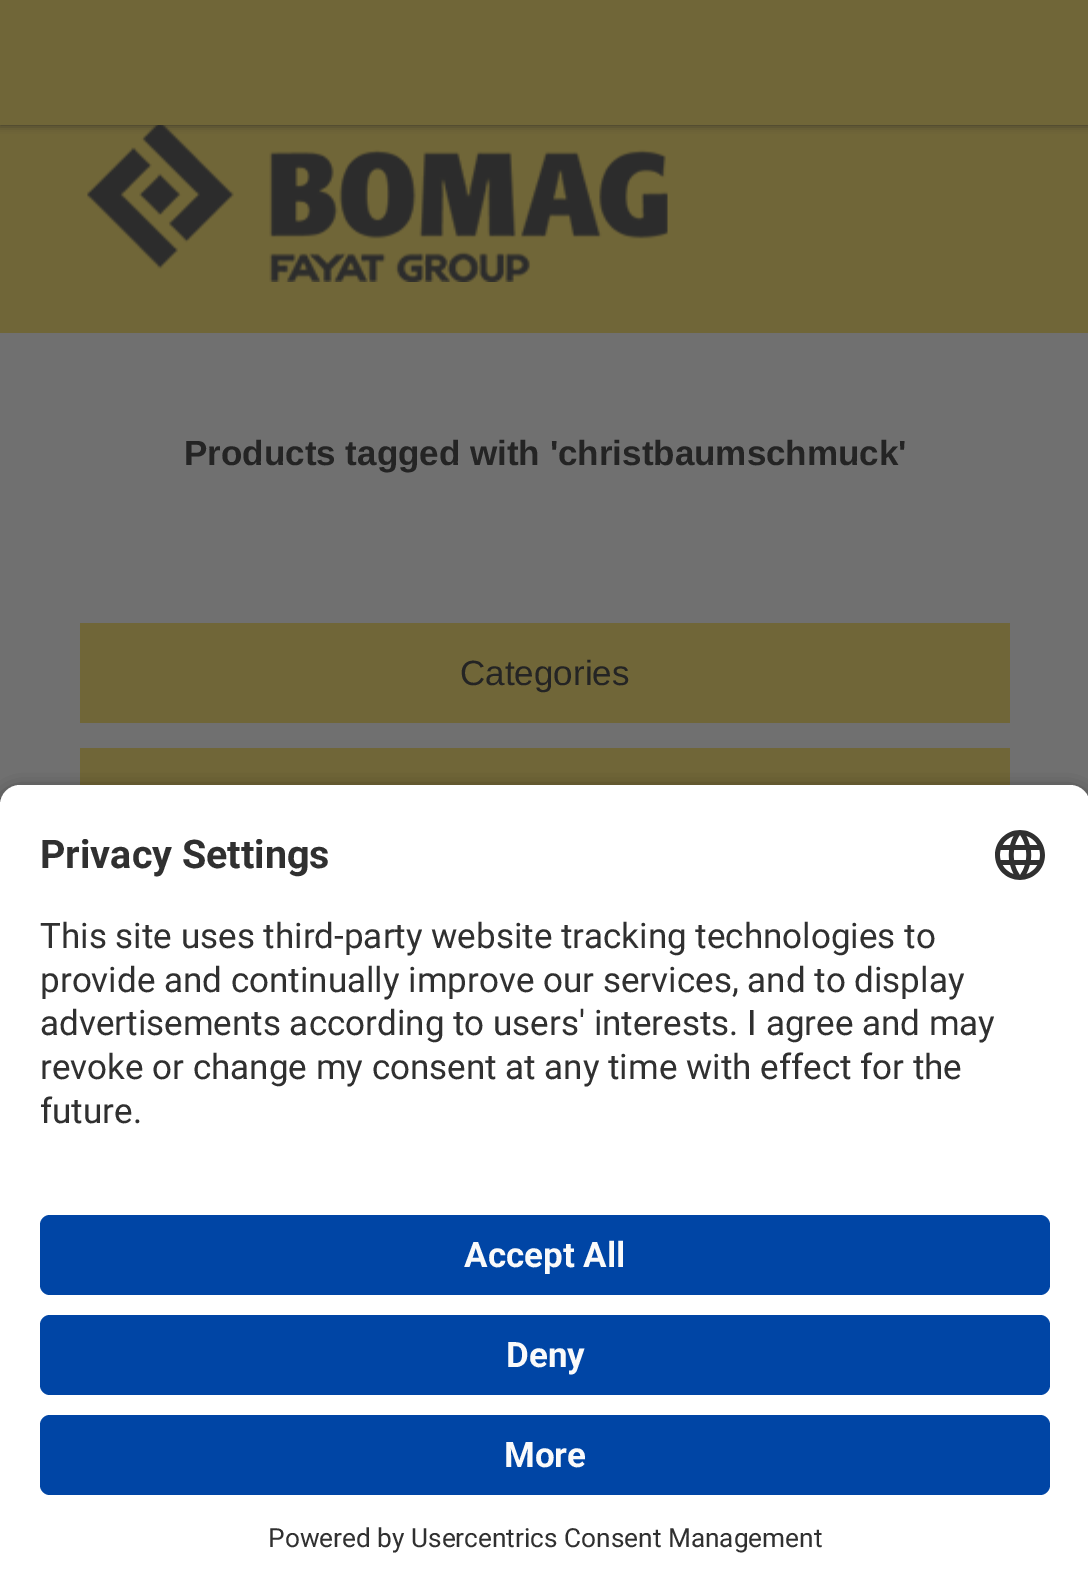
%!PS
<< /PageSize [1088 1593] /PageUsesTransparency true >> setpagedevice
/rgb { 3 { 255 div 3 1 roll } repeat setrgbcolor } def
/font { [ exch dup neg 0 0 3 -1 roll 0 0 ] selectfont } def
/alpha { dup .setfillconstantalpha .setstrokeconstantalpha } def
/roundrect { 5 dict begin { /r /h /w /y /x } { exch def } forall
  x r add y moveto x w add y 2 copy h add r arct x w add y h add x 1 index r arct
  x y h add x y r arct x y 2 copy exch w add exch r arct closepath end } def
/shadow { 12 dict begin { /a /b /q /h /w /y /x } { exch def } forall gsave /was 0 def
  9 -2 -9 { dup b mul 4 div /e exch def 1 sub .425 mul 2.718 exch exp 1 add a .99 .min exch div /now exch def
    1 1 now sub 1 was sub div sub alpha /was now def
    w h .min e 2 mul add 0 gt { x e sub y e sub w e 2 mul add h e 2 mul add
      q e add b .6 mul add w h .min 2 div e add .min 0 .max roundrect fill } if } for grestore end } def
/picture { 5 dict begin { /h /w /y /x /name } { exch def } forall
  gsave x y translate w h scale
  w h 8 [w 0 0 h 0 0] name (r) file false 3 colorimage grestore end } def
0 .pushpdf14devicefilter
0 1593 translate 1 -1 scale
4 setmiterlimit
112 112 112 rgb
0 0 1088 1593 rectfill
112 102 56 rgb
0 125 1088 208 rectfill
(img/1.rgb) 87 125 581 157 picture
36 36 36 rgb
0 0 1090 125 0 4 0.75 shadow
[
  [0 0 1088 125 112 102 56]
  [80 623 930 100 112 102 56]
  [80 748 930 37 112 102 56]
] { aload pop rgb rectfill } forall
0 0 0 rgb
0 793 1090 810 20 9 0.8 shadow
255 255 255 rgb
20 785 moveto 1070 785 lineto 1081 785 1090 794 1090 805 curveto 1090 1185 lineto 0 1185 lineto 0 805 lineto 0 794 9 785 20 785 curveto closepath fill
(img/2.rgb) 995 830 50 50 picture
0 1185 1088 408 rectfill
0 69 165 rgb
40 1215 1010 80 10 roundrect fill
40 1315 1010 80 10 roundrect fill
40 1415 1010 80 10 roundrect fill
/LiberationSans-Bold 35 font
36 36 36 rgb
184 465 moveto (Products tagged with 'christbaumschmuck') show
/LiberationSans-Regular 35 font
460 685 moveto (Categories) show
/Roboto-Bold 39.5 font
48 48 48 rgb
40 868 moveto (Privacy Settings) show
/Roboto-Regular 35 font
[
  [(This site uses third-party website tracking technologies to) 40 948]
  [(provide and continually improve our services, and to display) 40 992]
  [(advertisements according to users' interests. I agree and may) 40 1035]
  [(revoke or change my consent at any time with effect for the) 40 1079]
  [(future.) 40 1123]
] { aload pop moveto show } forall
/Roboto-Bold 35 font
250 250 250 rgb
[
  [(Accept All) 464 1267]
  [(Deny) 506 1367]
  [(More) 504 1467]
] { aload pop moveto show } forall
/Roboto-Regular 26.25 font
48 48 48 rgb
268 1547 moveto (Powered by Usercentrics Consent Management) show
.poppdf14devicefilter showpage
